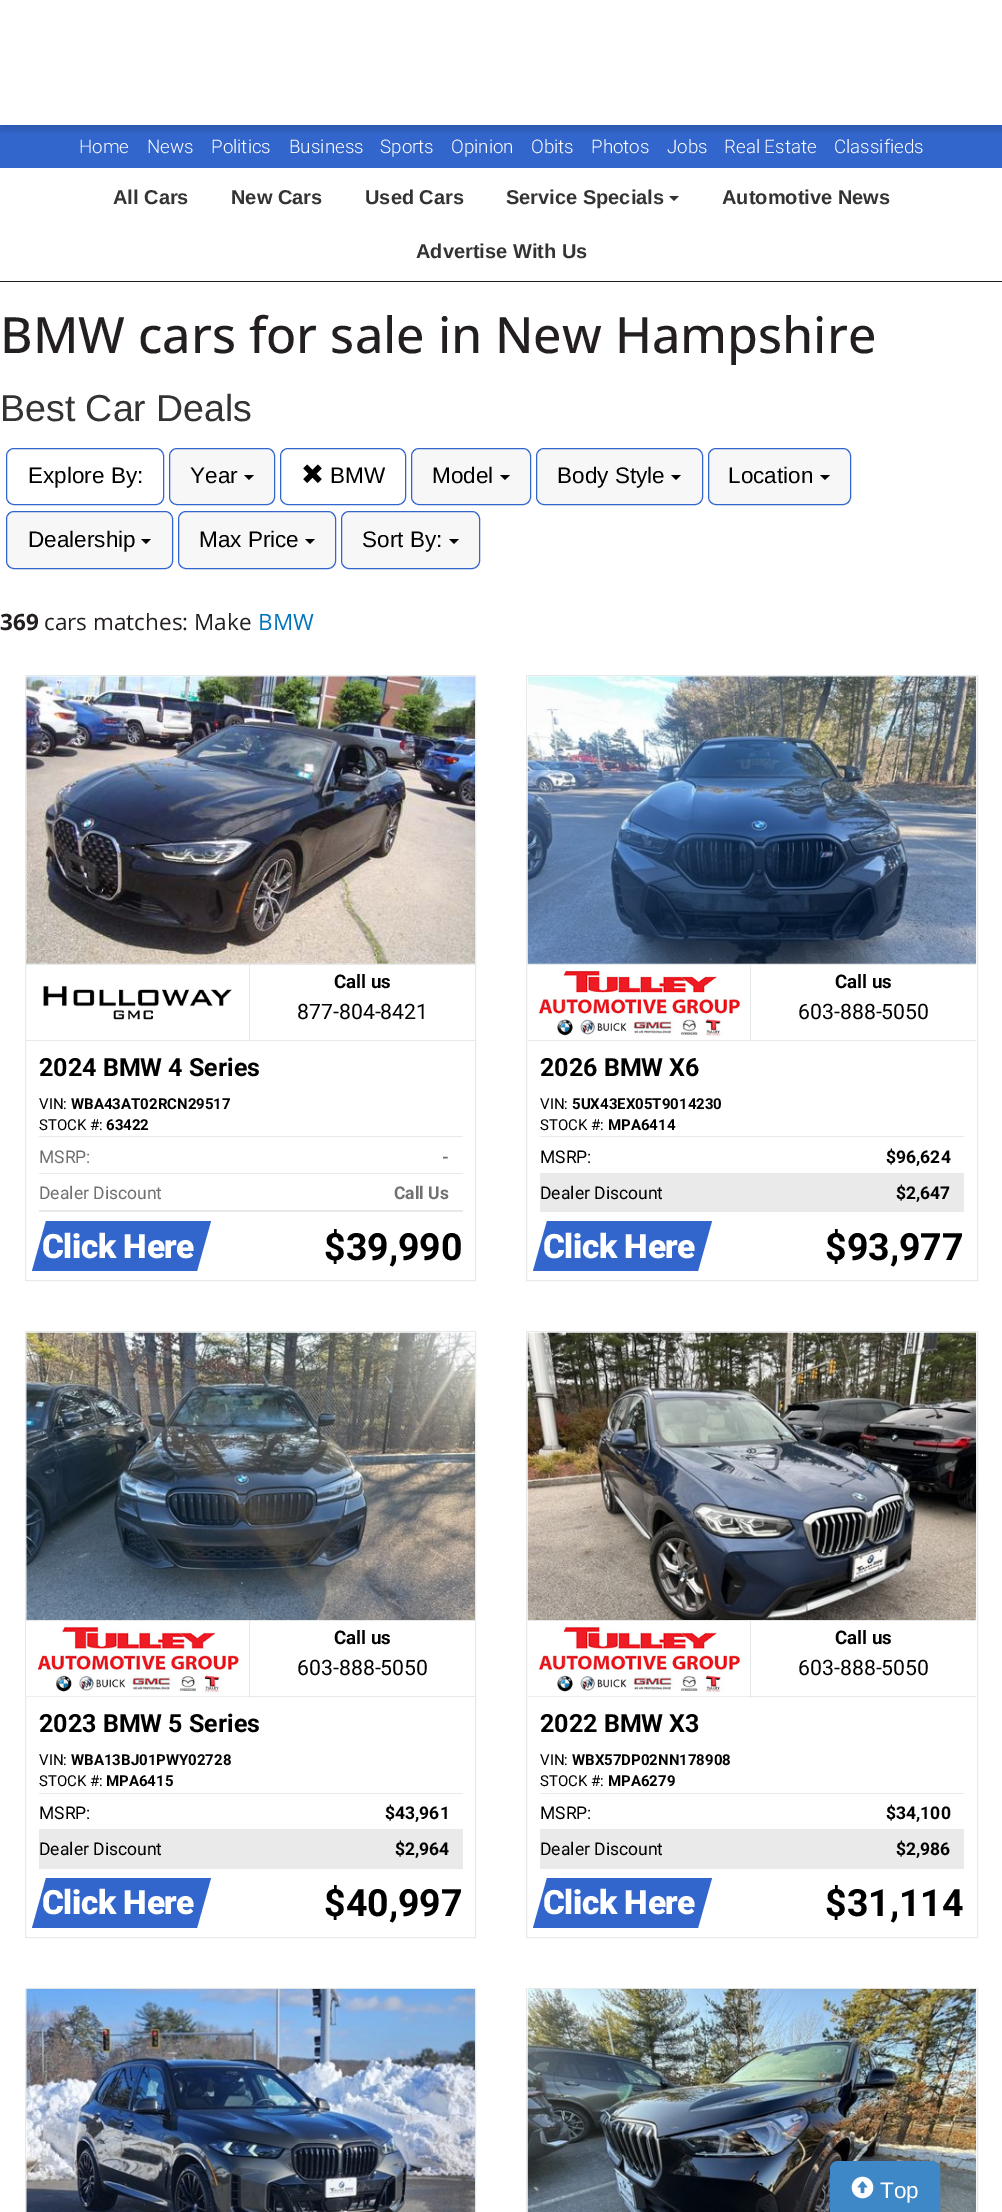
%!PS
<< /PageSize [1002 2212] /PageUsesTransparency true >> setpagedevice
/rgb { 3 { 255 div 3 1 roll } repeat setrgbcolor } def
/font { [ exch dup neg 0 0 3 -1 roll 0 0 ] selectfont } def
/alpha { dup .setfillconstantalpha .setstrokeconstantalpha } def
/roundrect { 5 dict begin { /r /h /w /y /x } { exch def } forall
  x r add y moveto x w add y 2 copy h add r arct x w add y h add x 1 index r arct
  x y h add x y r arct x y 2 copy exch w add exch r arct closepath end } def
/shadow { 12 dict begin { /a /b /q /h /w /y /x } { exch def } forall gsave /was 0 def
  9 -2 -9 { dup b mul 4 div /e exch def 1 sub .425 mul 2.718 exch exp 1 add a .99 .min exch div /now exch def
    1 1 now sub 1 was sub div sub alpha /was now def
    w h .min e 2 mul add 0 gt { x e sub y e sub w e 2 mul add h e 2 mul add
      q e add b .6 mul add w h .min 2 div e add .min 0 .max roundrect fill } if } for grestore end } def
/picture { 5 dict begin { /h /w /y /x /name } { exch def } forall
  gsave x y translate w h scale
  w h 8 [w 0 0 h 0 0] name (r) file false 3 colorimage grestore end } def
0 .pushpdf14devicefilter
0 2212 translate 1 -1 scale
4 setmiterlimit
255 255 255 rgb
0 0 1002 2212 rectfill
50 102 204 rgb
0 125 1002 43 rectfill
gsave
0 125 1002 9 rectclip
0 0 0 rgb
0 6 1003 125 0 3 0.14 shadow
grestore
30 30 30 rgb
0 281 1002 1 rectfill
51 51 51 rgb
669 196 moveto 679 196 lineto 674 201 lineto closepath fill
50 102 204 rgb
6.5 448.5 157 56 7.5 roundrect stroke
247 247 247 rgb
169.5 448.5 105 56 7.5 roundrect gsave fill grestore
50 102 204 rgb
stroke
0 0 0 rgb
244 475 moveto 254 475 lineto 249 480 lineto closepath fill
50 102 204 rgb
280.5 448.5 125 56 7.5 roundrect stroke
(img/1.rgb) 303 464 19 19 picture
247 247 247 rgb
411.5 448.5 119 56 7.5 roundrect gsave fill grestore
50 102 204 rgb
stroke
0 0 0 rgb
500 475 moveto 510 475 lineto 505 480 lineto closepath fill
247 247 247 rgb
536.5 448.5 166 56 7.5 roundrect gsave fill grestore
50 102 204 rgb
stroke
0 0 0 rgb
671 475 moveto 681 475 lineto 676 480 lineto closepath fill
247 247 247 rgb
708.5 448.5 142 56 7.5 roundrect gsave fill grestore
50 102 204 rgb
stroke
0 0 0 rgb
820 475 moveto 830 475 lineto 825 480 lineto closepath fill
247 247 247 rgb
6.5 511.5 166 57 7.5 roundrect gsave fill grestore
50 102 204 rgb
stroke
0 0 0 rgb
141 539 moveto 151 539 lineto 146 544 lineto closepath fill
247 247 247 rgb
178.5 511.5 157 57 7.5 roundrect gsave fill grestore
50 102 204 rgb
stroke
0 0 0 rgb
305 539 moveto 315 539 lineto 310 544 lineto closepath fill
247 247 247 rgb
341.5 511.5 138 57 7.5 roundrect gsave fill grestore
50 102 204 rgb
stroke
0 0 0 rgb
449 539 moveto 459 539 lineto 454 544 lineto closepath fill
230 234 234 rgb
25.5 675.5 450 605 rectstroke
(img/2.rgb) 26 676 449 288 picture
[
  [26 964 449 1 230 234 234]
  [249 964 1 77 230 234 234]
  [26 1040 449 1 230 234 234]
] { aload pop rgb rectfill } forall
(img/3.rgb) 43 986 189 34 picture
[
  [39 1136 424 1 230 234 234]
  [39 1173 424 1 230 234 234]
  [39 1210 424 2 230 234 234]
] { aload pop rgb rectfill } forall
50 102 204 rgb
46 1221 moveto 211 1221 lineto 197 1271 lineto 32 1271 lineto closepath fill
230 234 234 rgb
526.5 675.5 451 605 rectstroke
(img/4.rgb) 527 676 450 288 picture
[
  [528 964 448 1 230 234 234]
  [750 964 1 77 230 234 234]
  [528 1040 448 1 230 234 234]
] { aload pop rgb rectfill } forall
(img/5.rgb) 538 970 203 67 picture
[
  [540 1136 424 1 230 234 234]
  [540 1173 424 1 230 234 234]
  [540 1174 424 36 234 234 234]
  [540 1210 424 2 230 234 234]
] { aload pop rgb rectfill } forall
50 102 204 rgb
547 1221 moveto 712 1221 lineto 698 1271 lineto 533 1271 lineto closepath fill
230 234 234 rgb
25.5 1331.5 450 606 rectstroke
(img/6.rgb) 26 1332 449 288 picture
[
  [26 1620 449 1 230 234 234]
  [249 1620 1 78 230 234 234]
  [26 1696 449 1 230 234 234]
] { aload pop rgb rectfill } forall
(img/7.rgb) 26 1626 223 71 picture
[
  [39 1793 424 1 230 234 234]
  [39 1829 424 1 230 234 234]
  [39 1830 424 38 234 234 234]
  [39 1866 424 1 230 234 234]
  [39 1868 424 1 230 234 234]
] { aload pop rgb rectfill } forall
50 102 204 rgb
46 1878 moveto 211 1878 lineto 197 1928 lineto 32 1928 lineto closepath fill
230 234 234 rgb
526.5 1331.5 451 606 rectstroke
(img/8.rgb) 527 1332 450 288 picture
[
  [528 1620 448 1 230 234 234]
  [750 1620 1 78 230 234 234]
  [528 1696 448 1 230 234 234]
] { aload pop rgb rectfill } forall
(img/9.rgb) 528 1626 222 71 picture
[
  [540 1793 424 1 230 234 234]
  [540 1829 424 1 230 234 234]
  [540 1830 424 38 234 234 234]
  [540 1866 424 1 230 234 234]
  [540 1868 424 1 230 234 234]
] { aload pop rgb rectfill } forall
50 102 204 rgb
547 1878 moveto 712 1878 lineto 698 1928 lineto 533 1928 lineto closepath fill
230 234 234 rgb
25.5 1988.5 450 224 rectstroke
(img/10.rgb) 26 1988 449 224 picture
526.5 1988.5 451 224 rectstroke
(img/11.rgb) 527 1988 450 224 picture
63 136 199 rgb
830.5 2161.5 109 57 7.5 roundrect gsave fill grestore
stroke
(img/12.rgb) 851 2176 23 23 picture
/Roboto-Light 18.75 font
255 255 255 rgb
[
  [(Home) 79 153]
  [(News) 147 153]
  [(Politics) 211 153]
  [(Business) 289 153]
  [(Sports) 380 153]
  [(Opinion) 451 153]
  [(Obits) 531 153]
  [(Photos) 591 153]
  [(Jobs) 667 153]
  [(Real Estate) 724 153]
  [(Classifieds) 834 153]
] { aload pop moveto show } forall
/LiberationSans-Bold 20 font
51 51 51 rgb
[
  [(All Cars) 113 204]
  [(New Cars) 231 204]
  [(Used Cars) 365 204]
  [(Service Specials) 506 204]
  [(Automotive News) 722 204]
  [(Advertise With Us) 416 258]
] { aload pop moveto show } forall
/OpenSans-Medium 50 font
35 31 32 rgb
0 353 moveto (BMW cars for sale in New Hampshire) show
/LiberationSans-Regular 37.5 font
51 51 51 rgb
0 421 moveto (Best Car Deals) show
/LiberationSans-Regular 22.5 font
0 0 0 rgb
[
  [(Explore By:) 28 483]
  [(Year) 190 483]
  [(BMW) 330 483]
  [(Model) 432 483]
  [(Body Style) 557 483]
  [(Location) 728 483]
  [(Dealership) 28 547]
  [(Max Price) 199 547]
  [(Sort By:) 362 547]
] { aload pop moveto show } forall
/OpenSans-Bold 22.5 font
35 31 32 rgb
0 630 moveto (369) show
/OpenSans-Regular 22.5 font
44 630 moveto (cars matches: Make) show
0 115 189 rgb
258 630 moveto (BMW) show
/Roboto-Bold 18.75 font
0 0 0 rgb
334 988 moveto (Call us) show
/Roboto-Regular 21.25 font
297 1019 moveto (877-804-8421) show
/Roboto-Bold 25 font
39 1076 moveto (2024 BMW 4 Series) show
/Roboto-Regular 15 font
39 1109 moveto (VIN:) show
/Roboto-Bold 15 font
71 1109 moveto (WBA43AT02RCN29517) show
/Roboto-Regular 15 font
39 1130 moveto (STOCK #:) show
/Roboto-Bold 15 font
106 1130 moveto (63422) show
/Roboto-Regular 17.5 font
112 112 112 rgb
39 1163 moveto (MSRP:) show
/Roboto-Bold 17.5 font
442 1163 moveto (-) show
/Roboto-Regular 17.5 font
39 1199 moveto (Dealer Discount) show
/Roboto-Bold 17.5 font
394 1199 moveto (Call Us) show
/Roboto-Black 33.5 font
255 255 255 rgb
42 1258 moveto -0.5 0 (Click Here) ashow
/Roboto-Bold 37.5 font
0 0 0 rgb
324 1260 moveto ($39,990) show
/Roboto-Bold 18.75 font
835 988 moveto (Call us) show
/Roboto-Regular 21.25 font
798 1019 moveto (603-888-5050) show
/Roboto-Bold 25 font
540 1076 moveto (2026 BMW X6) show
/Roboto-Regular 15 font
540 1109 moveto (VIN:) show
/Roboto-Bold 15 font
572 1109 moveto (5UX43EX05T9014230) show
/Roboto-Regular 15 font
540 1130 moveto (STOCK #:) show
/Roboto-Bold 15 font
608 1130 moveto (MPA6414) show
/Roboto-Regular 17.5 font
540 1163 moveto (MSRP:) show
/Roboto-Bold 17.5 font
886 1163 moveto ($96,624) show
/Roboto-Regular 17.5 font
540 1199 moveto (Dealer Discount) show
/Roboto-Bold 17.5 font
896 1199 moveto ($2,647) show
/Roboto-Black 33.5 font
255 255 255 rgb
543 1258 moveto -0.5 0 (Click Here) ashow
/Roboto-Bold 37.5 font
0 0 0 rgb
825 1260 moveto ($93,977) show
/Roboto-Bold 18.75 font
334 1644 moveto (Call us) show
/Roboto-Regular 21.25 font
297 1675 moveto (603-888-5050) show
/Roboto-Bold 25 font
39 1732 moveto (2023 BMW 5 Series) show
/Roboto-Regular 15 font
39 1765 moveto (VIN:) show
/Roboto-Bold 15 font
71 1765 moveto (WBA13BJ01PWY02728) show
/Roboto-Regular 15 font
39 1786 moveto (STOCK #:) show
/Roboto-Bold 15 font
106 1786 moveto (MPA6415) show
/Roboto-Regular 17.5 font
39 1819 moveto (MSRP:) show
/Roboto-Bold 17.5 font
385 1819 moveto ($43,961) show
/Roboto-Regular 17.5 font
39 1855 moveto (Dealer Discount) show
/Roboto-Bold 17.5 font
395 1855 moveto ($2,964) show
/Roboto-Black 33.5 font
255 255 255 rgb
42 1914 moveto -0.5 0 (Click Here) ashow
/Roboto-Bold 37.5 font
0 0 0 rgb
324 1916 moveto ($40,997) show
/Roboto-Bold 18.75 font
835 1644 moveto (Call us) show
/Roboto-Regular 21.25 font
798 1675 moveto (603-888-5050) show
/Roboto-Bold 25 font
540 1732 moveto (2022 BMW X3) show
/Roboto-Regular 15 font
540 1765 moveto (VIN:) show
/Roboto-Bold 15 font
572 1765 moveto (WBX57DP02NN178908) show
/Roboto-Regular 15 font
540 1786 moveto (STOCK #:) show
/Roboto-Bold 15 font
608 1786 moveto (MPA6279) show
/Roboto-Regular 17.5 font
540 1819 moveto (MSRP:) show
/Roboto-Bold 17.5 font
886 1819 moveto ($34,100) show
/Roboto-Regular 17.5 font
540 1855 moveto (Dealer Discount) show
/Roboto-Bold 17.5 font
896 1855 moveto ($2,986) show
/Roboto-Black 33.5 font
255 255 255 rgb
543 1914 moveto -0.5 0 (Click Here) ashow
/Roboto-Bold 37.5 font
0 0 0 rgb
825 1916 moveto ($31,114) show
/LiberationSans-Regular 22.5 font
255 255 255 rgb
880 2198 moveto (Top) show
.poppdf14devicefilter showpage
